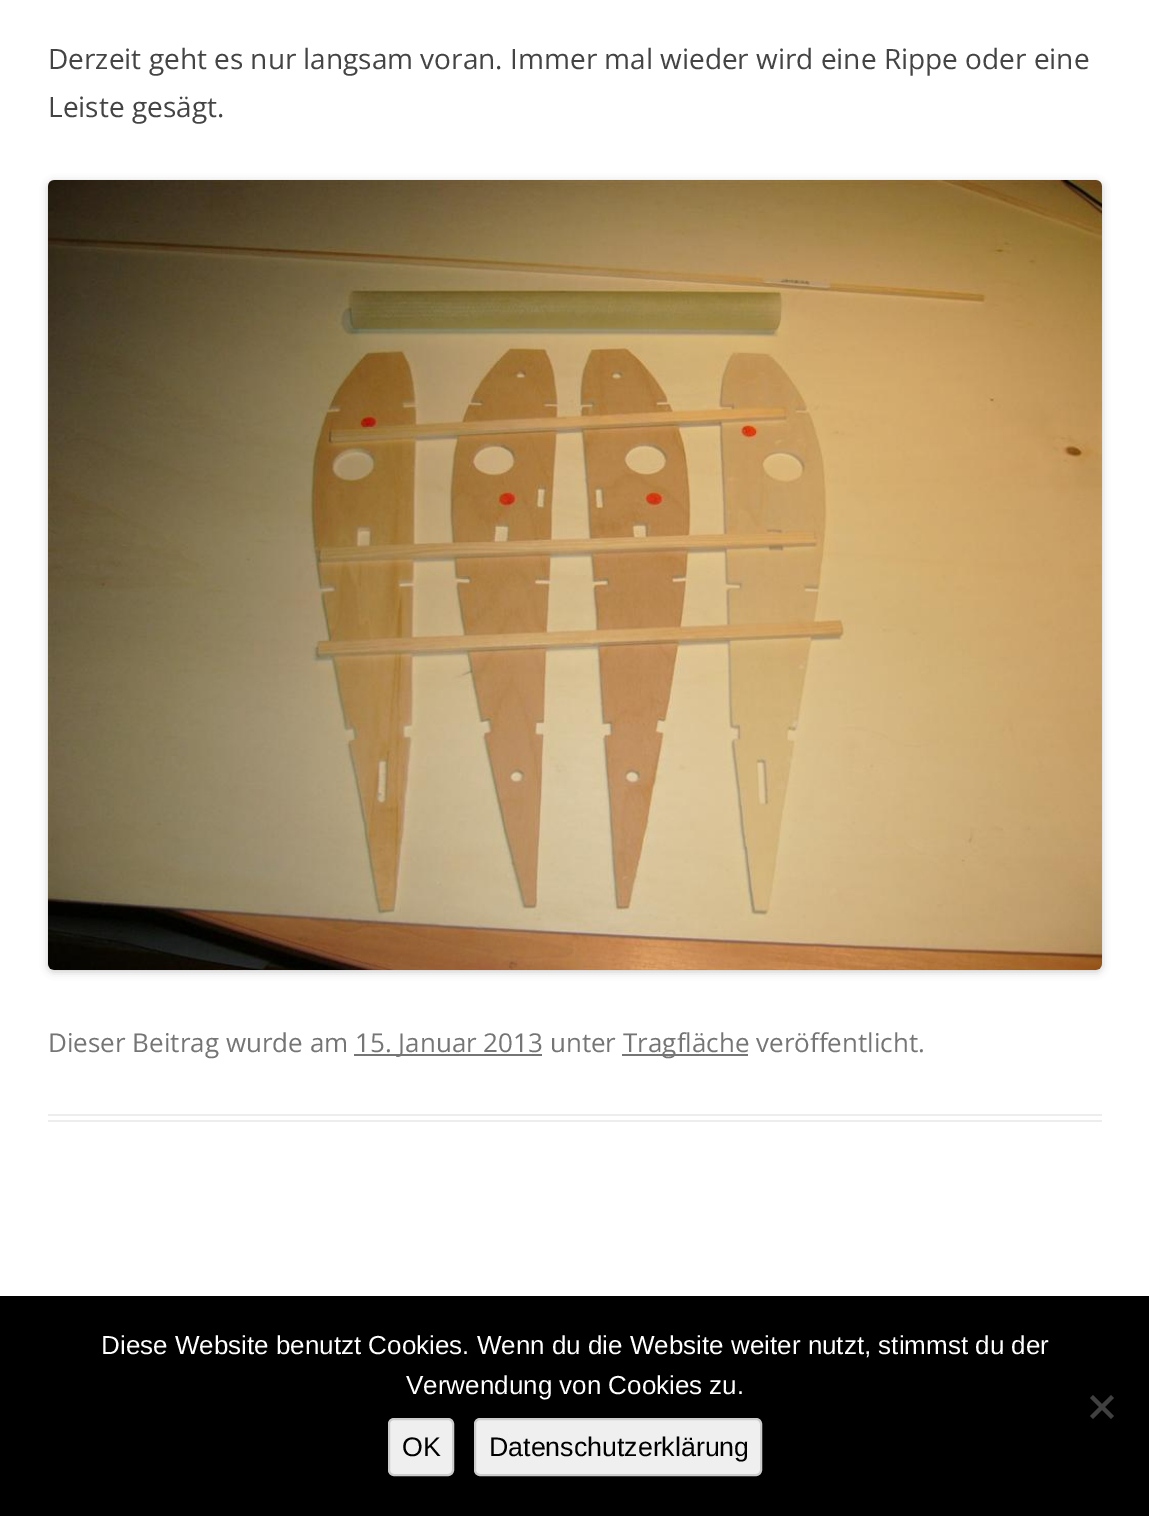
%!PS
<< /PageSize [1149 1516] /PageUsesTransparency true >> setpagedevice
/rgb { 3 { 255 div 3 1 roll } repeat setrgbcolor } def
/font { [ exch dup neg 0 0 3 -1 roll 0 0 ] selectfont } def
/alpha { dup .setfillconstantalpha .setstrokeconstantalpha } def
/roundrect { 5 dict begin { /r /h /w /y /x } { exch def } forall
  x r add y moveto x w add y 2 copy h add r arct x w add y h add x 1 index r arct
  x y h add x y r arct x y 2 copy exch w add exch r arct closepath end } def
/shadow { 12 dict begin { /a /b /q /h /w /y /x } { exch def } forall gsave /was 0 def
  9 -2 -9 { dup b mul 4 div /e exch def 1 sub .425 mul 2.718 exch exp 1 add a .99 .min exch div /now exch def
    1 1 now sub 1 was sub div sub alpha /was now def
    w h .min e 2 mul add 0 gt { x e sub y e sub w e 2 mul add h e 2 mul add
      q e add b .6 mul add w h .min 2 div e add .min 0 .max roundrect fill } if } for grestore end } def
/picture { 5 dict begin { /h /w /y /x /name } { exch def } forall
  gsave x y translate w h scale
  w h 8 [w 0 0 h 0 0] name (r) file false 3 colorimage grestore end } def
0 .pushpdf14devicefilter
0 1516 translate 1 -1 scale
4 setmiterlimit
255 255 255 rgb
0 0 1149 1516 rectfill
237 237 237 rgb
48 1114 1054 2 rectfill
48 1120 1054 2 rectfill
0 0 0 rgb
48 182 1054 790 6 4 0.2 shadow
(img/1.rgb) 48 180 1054 790 picture
[
  [354 1054 188 2 117 117 117]
  [622 1054 126 2 117 117 117]
  [0 1296 1149 220 0 0 0]
] { aload pop rgb rectfill } forall
64 64 64 rgb
1111 1395 moveto 1114 1398 lineto 1093 1419 lineto 1090 1416 lineto closepath fill
1090 1398 moveto 1093 1395 lineto 1114 1416 lineto 1111 1419 lineto closepath fill
239 239 239 rgb
389 1419 64 56 5 roundrect gsave fill grestore
204 204 204 rgb
2 setlinewidth
stroke
239 239 239 rgb
475 1419 286 56 5 roundrect gsave fill grestore
204 204 204 rgb
stroke
/OpenSans-Regular 28 font
68 68 68 rgb
48 69 moveto (Derzeit geht es nur langsam voran. Immer mal wieder wird eine Rippe oder eine) show
48 117 moveto (Leiste gesägt.) show
/OpenSans-Regular 26 font
117 117 117 rgb
[
  [(Dieser Beitrag wurde am) 48 1052]
  [(15. Januar 2013 unter) 355 1052]
  [(Tragfläche veröffentlicht.) 623 1052]
] { aload pop moveto show } forall
/LiberationSans-Regular 26 font
255 255 255 rgb
101 1354 moveto (Diese Website benutzt Cookies. Wenn du die Website weiter nutzt, stimmst du der) show
406 1394 moveto (Verwendung von Cookies zu.) show
/LiberationSans-Regular 26.75 font
0 0 0 rgb
402 1456 moveto (OK) show
489 1456 moveto (Datenschutzerklärung) show
.poppdf14devicefilter showpage
